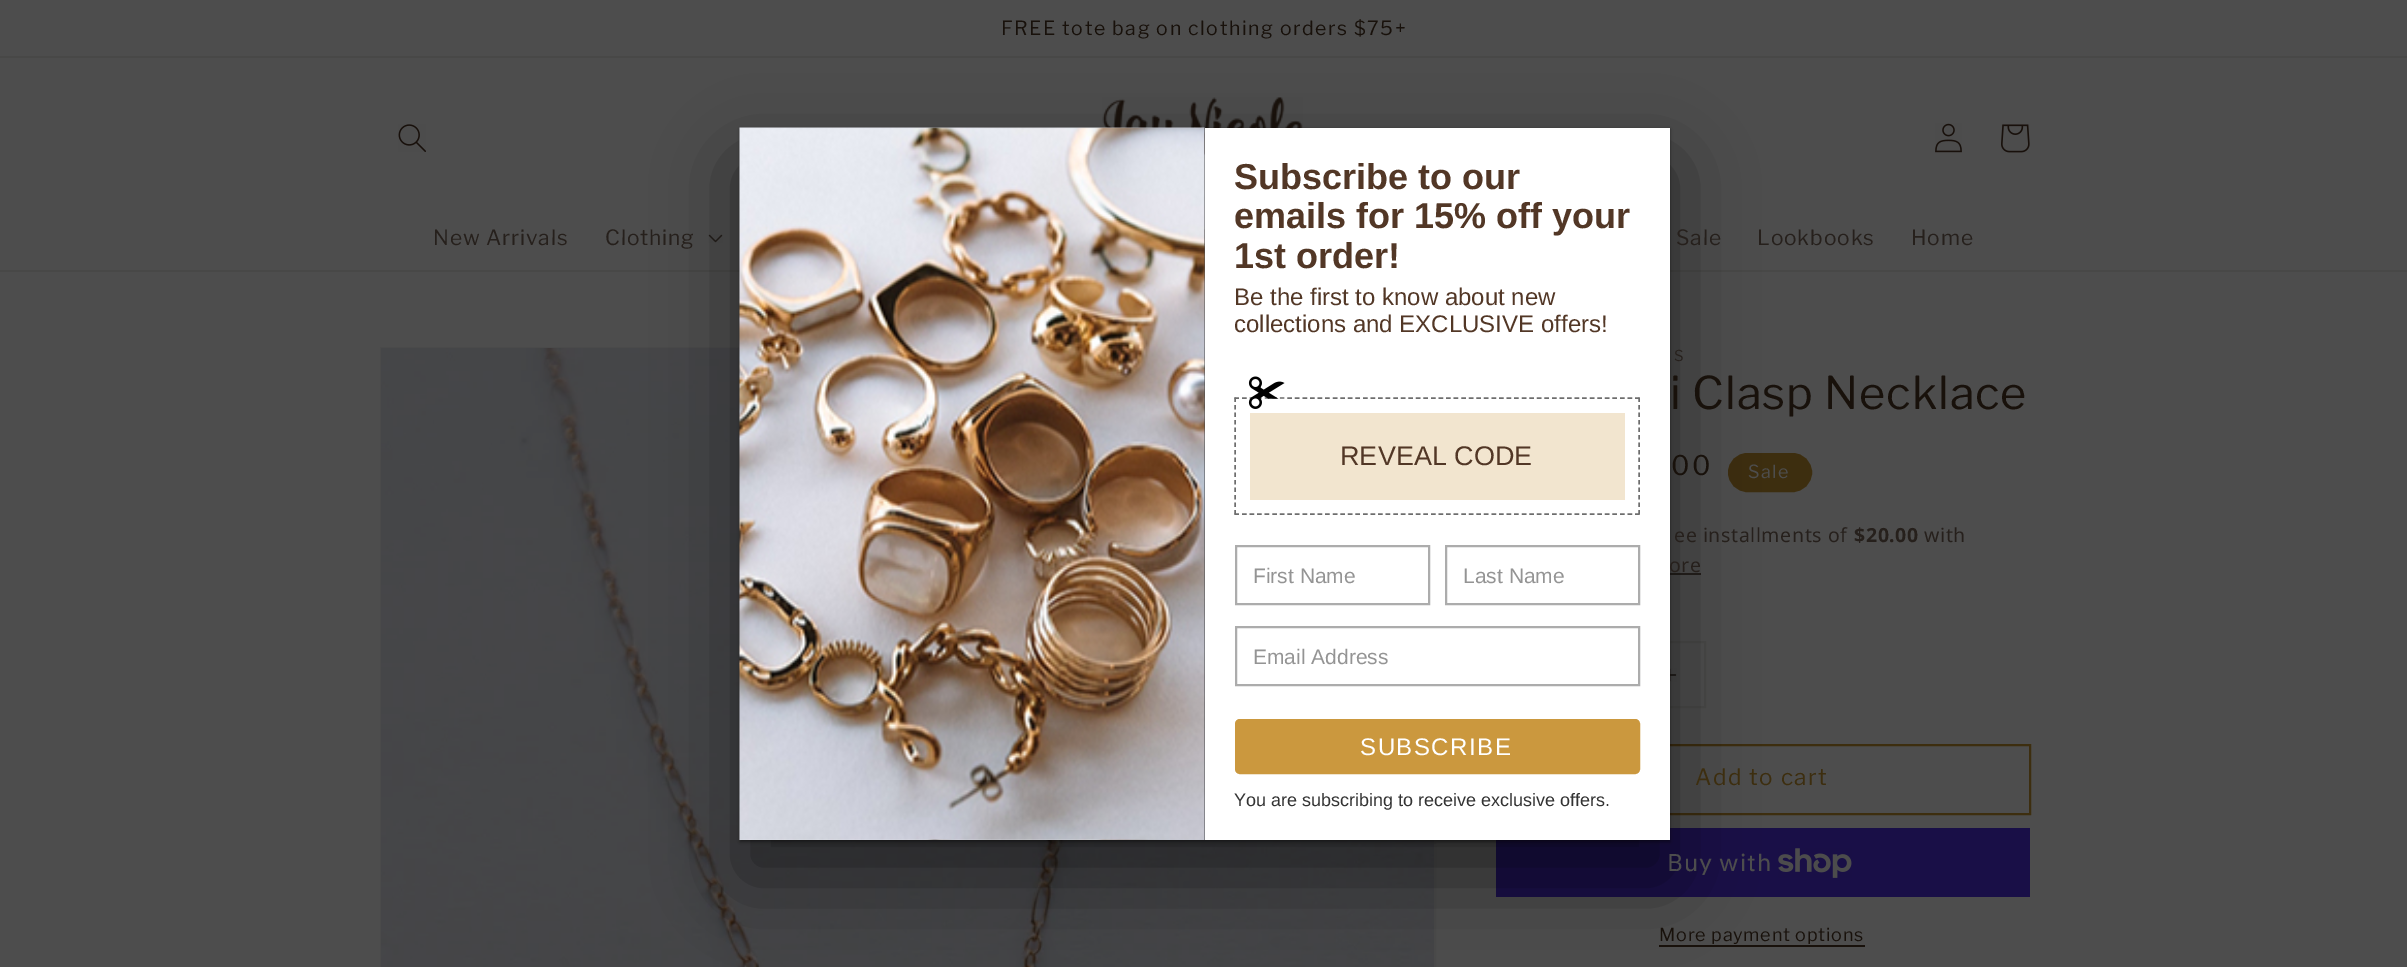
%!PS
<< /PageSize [2407 967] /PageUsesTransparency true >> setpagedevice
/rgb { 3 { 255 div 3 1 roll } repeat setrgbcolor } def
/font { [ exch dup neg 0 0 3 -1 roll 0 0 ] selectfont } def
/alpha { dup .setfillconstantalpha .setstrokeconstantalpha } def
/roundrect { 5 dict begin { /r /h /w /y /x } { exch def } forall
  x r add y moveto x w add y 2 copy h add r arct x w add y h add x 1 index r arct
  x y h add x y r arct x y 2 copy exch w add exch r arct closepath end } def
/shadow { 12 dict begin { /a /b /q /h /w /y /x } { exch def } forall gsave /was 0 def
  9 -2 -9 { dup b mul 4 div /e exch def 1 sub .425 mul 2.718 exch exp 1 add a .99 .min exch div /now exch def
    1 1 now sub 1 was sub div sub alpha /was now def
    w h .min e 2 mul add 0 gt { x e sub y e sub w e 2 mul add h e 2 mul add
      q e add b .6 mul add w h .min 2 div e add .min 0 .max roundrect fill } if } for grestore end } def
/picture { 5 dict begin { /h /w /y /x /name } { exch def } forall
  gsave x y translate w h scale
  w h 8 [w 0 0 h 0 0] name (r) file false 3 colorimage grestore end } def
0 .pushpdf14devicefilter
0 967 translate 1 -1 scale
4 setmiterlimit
77 77 77 rgb
0 0 2407 967 rectfill
72 72 71 rgb
0 56 2407 2 rectfill
0 270 2407 2 rectfill
(img/4.rgb) 1102 97 201 59 picture
74 74 74 rgb
2 setlinewidth
381 348 1054 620 rectstroke
(img/8.rgb) 381 348 1053 619 picture
38 32 28 rgb
1670 573 31 2 rectfill
72 72 71 rgb
1497 642 208 65 rectstroke
(img/9.rgb) 1670 668 7 14 picture
61 46 15 rgb
1495 745 535 69 rectstroke
25 15 71 rgb
1496 828 534 69 rectfill
0 0 0 rgb
740 129 930 713 0 1.5 0.4 shadow
(img/7.rgb) 708 234 15 9 picture
61 46 15 rgb
1729 454 82 37 18.5 roundrect gsave fill grestore
stroke
(img/10.rgb) 1778 848 74 30 picture
24 17 11 rgb
1659 945 206 2 rectfill
0 0 0 rgb
740 165 930 713 0 41 0.5 shadow
(img/1.rgb) 739 127 466 713 picture
(img/3.rgb) 398 124 28 28 picture
(img/5.rgb) 1935 123 27 30 picture
(img/6.rgb) 2001 124 29 29 picture
/LibreFranklin-Regular 19.5 font
24 17 11 rgb
1001 35 moveto 1.5 0 (FREE tote bag on clothing orders $75+) ashow
/LibreFranklin-Regular 21 font
38 32 28 rgb
433 245 moveto 0.9 0 (New Arrivals) ashow
605 245 moveto 0.9 0 (Clothing) ashow
1676 245 moveto 0.9 0 (Sale) ashow
1757 245 moveto 0.9 0 (Lookbooks) ashow
1911 245 moveto 0.9 0 (Home) ashow
/LibreFranklin-Regular 15 font
1674 361 moveto 2 0 (S) ashow
/LibreFranklin-Regular 45 font
24 17 11 rgb
1670 409 moveto 0.9 0 (i Clasp Necklace) ashow
/LibreFranklin-Regular 27 font
1671 475 moveto 2 0 (00) ashow
/LibreFranklin-Regular 18 font
77 77 77 rgb
1748 478 moveto 1.5 0 (Sale) ashow
/NotoSans-Regular 19.5 font
38 32 28 rgb
1674 542 moveto 0.6 0 (ee installments of) ashow
/NotoSans-Bold 19.5 font
1854 542 moveto 0.6 0 ($20.00) ashow
/NotoSans-Regular 19.5 font
1924 542 moveto 0.6 0 (with) ashow
1669 572 moveto 0.6 0 (ore) ashow
255 255 255 rgb
1205 128 465 712 rectfill
203 152 62 rgb
1237.5 721.5 400 50 2.5 roundrect gsave fill grestore
5 setlinewidth
stroke
/LiberationSans-Regular 24 font
255 255 255 rgb
1360 755 moveto 1.5 0 (SUBSCRIBE) ashow
172 172 172 rgb
2 setlinewidth
1236 627 403 58 rectstroke
/LiberationSans-Regular 21 font
148 148 148 rgb
1253 664 moveto (Email Address) show
172 172 172 rgb
1446 546 193 58 rectstroke
148 148 148 rgb
1463 583 moveto (Last Name) show
172 172 172 rgb
1236 546 193 58 rectstroke
148 148 148 rgb
1253 583 moveto (First Name) show
109 109 109 rgb
1.5 setlinewidth
[4.5 3.06] 0 setdash
1234.5 398 moveto 1639.5 398 lineto stroke
(img/2.rgb) 1248 376 37 33 picture
[4.5 3] 0 setdash
1639 397.5 moveto 1639 514.5 lineto stroke
[4.5 3.06] 0 setdash
1234.5 514 moveto 1639.5 514 lineto stroke
[4.5 3] 0 setdash
1235 397.5 moveto 1235 514.5 lineto stroke
242 229 207 rgb
1250 413 375 87 rectfill
/LiberationSans-Regular 27 font
82 55 38 rgb
1340 465 moveto (REVEAL CODE) show
/LiberationSans-Regular 18 font
51 51 51 rgb
1234 806 moveto (You are subscribing to receive exclusive offers.) show
/LiberationSans-Regular 24 font
82 55 38 rgb
1234 332 moveto (collections and EXCLUSIVE offers!) show
1234 305 moveto (Be the first to know about new) show
/LiberationSans-Bold 36 font
[
  [(1st order!) 1234 268]
  [(emails for 15% off your) 1234 228]
  [(Subscribe to our) 1234 189]
] { aload pop moveto show } forall
/LibreFranklin-Regular 22.5 font
61 46 15 rgb
1695 785 moveto 1.5 0 (Add to cart) ashow
/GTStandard-Regular 24 font
77 77 77 rgb
1667 871 moveto 0.9 0 (Buy with) ashow
/LibreFranklin-Regular 18 font
24 17 11 rgb
1659 941 moveto 0.75 0 (More payment options) ashow
.poppdf14devicefilter showpage
